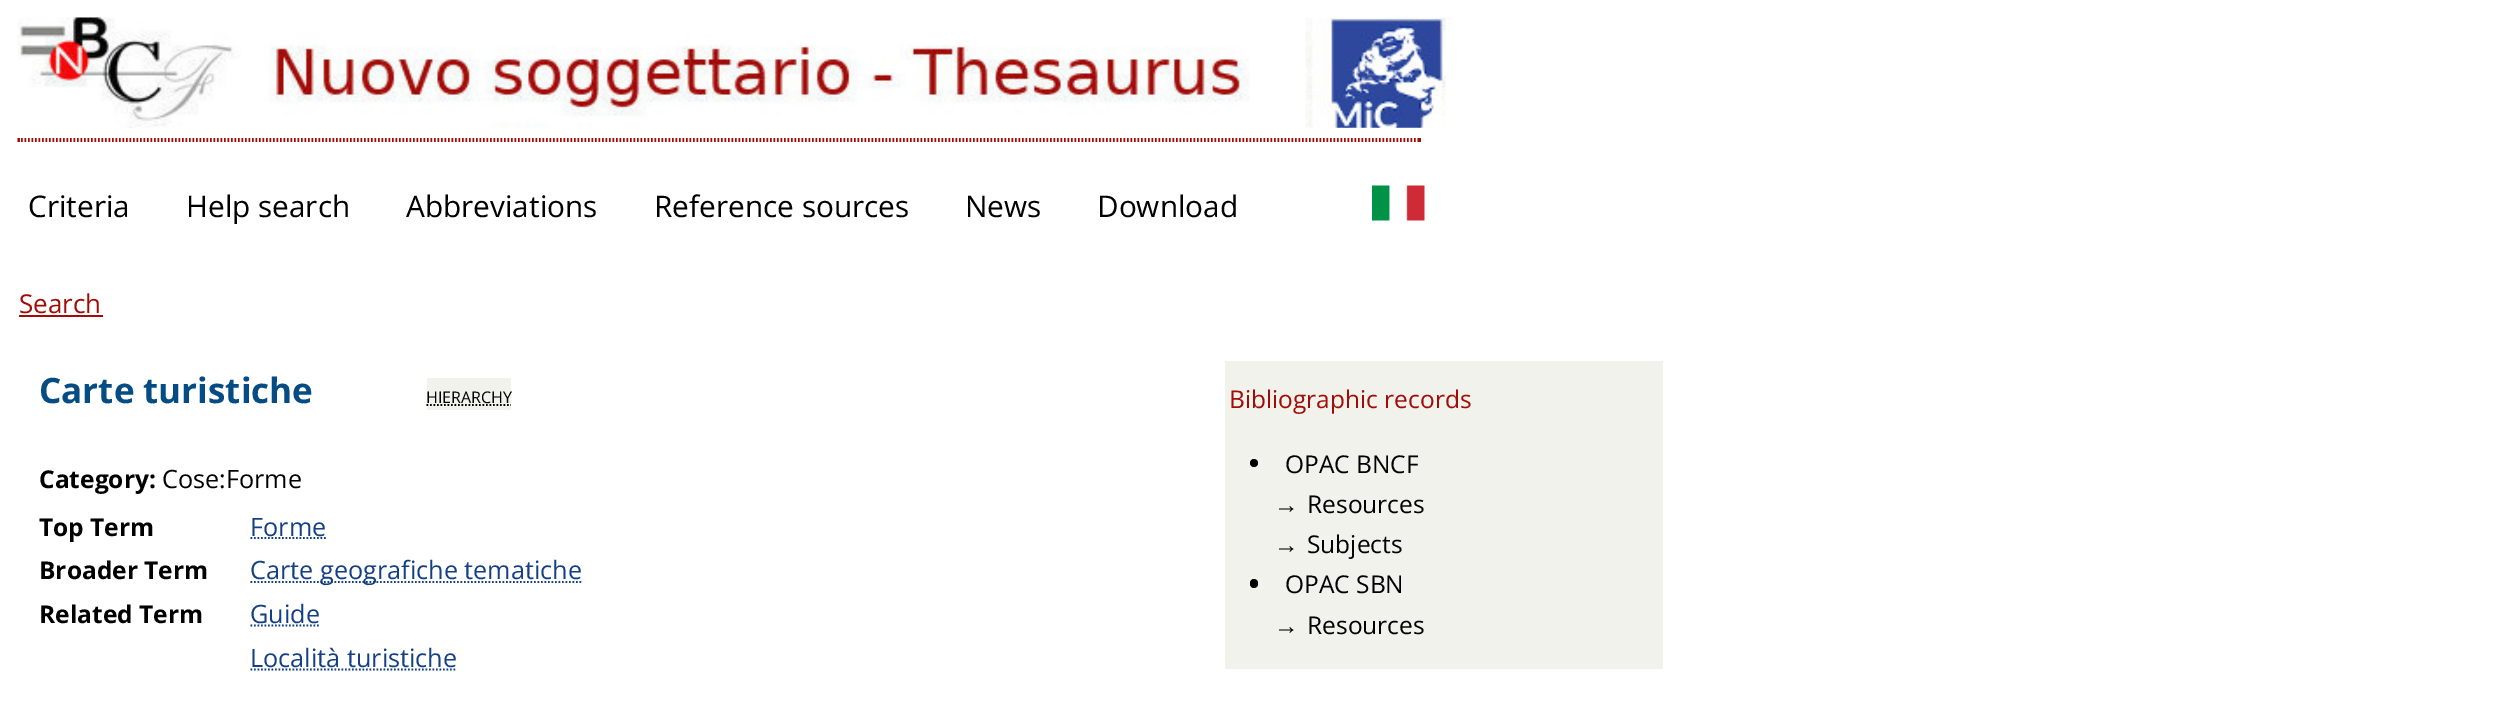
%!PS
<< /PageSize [2505 701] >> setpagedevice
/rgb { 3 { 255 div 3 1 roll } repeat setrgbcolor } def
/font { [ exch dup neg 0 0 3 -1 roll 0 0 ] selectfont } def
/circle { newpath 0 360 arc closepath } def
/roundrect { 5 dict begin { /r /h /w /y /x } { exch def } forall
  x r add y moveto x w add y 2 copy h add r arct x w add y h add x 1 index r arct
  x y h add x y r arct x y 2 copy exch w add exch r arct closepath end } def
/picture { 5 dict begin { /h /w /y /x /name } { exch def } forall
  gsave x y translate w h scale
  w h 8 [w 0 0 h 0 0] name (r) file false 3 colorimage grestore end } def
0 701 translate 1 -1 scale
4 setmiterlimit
255 255 255 rgb
0 0 2505 701 rectfill
(img/1.rgb) 17 17 1436 111 picture
161 12 6 rgb
1.8 setlinewidth
[1.75 1.75] 0 setdash
17.5 139 moveto 1421 139 lineto stroke
1419 138 2 4 rectfill
17.5 141 moveto 1421 141 lineto stroke
18 138 2 4 rectfill
(img/2.rgb) 1372 185 53 36 picture
19 315 84 2 rectfill
241 242 236 rgb
427 378 84 32 rectfill
0 0 0 rgb
426.5 405 moveto 511 405 lineto stroke
19 63 132 rgb
250.5 538 moveto 326.5 538 lineto stroke
250.5 582 moveto 581.5 582 lineto stroke
250.5 625.5 moveto 320 625.5 lineto stroke
250.5 669.5 moveto 457 669.5 lineto stroke
241 242 236 rgb
1225 361 438 308 rectfill
0 0 0 rgb
1254 463 4 circle fill
1250 579 8 9 4 roundrect fill
/OpenSans-Regular 29.75 font
[
  [(Criteria) 28 217]
  [(Help search) 186 217]
  [(Abbreviations) 406 217]
  [(Reference sources) 654 217]
  [(News) 965 217]
  [(Download) 1097 217]
] { aload pop moveto show } forall
/OpenSans-Regular 26 font
161 12 6 rgb
19 313 moveto (Search) show
/OpenSans-Bold 35 font
4 76 131 rgb
39 403 moveto (Carte turistiche) show
/OpenSans-Regular 16 font
0 0 0 rgb
426 403 moveto (HIERARCHY) show
/OpenSans-Bold 24.5 font
39 488 moveto (Category:) show
/OpenSans-Regular 25.25 font
162 488 moveto (Cose:Forme) show
/OpenSans-Bold 24.5 font
39 536 moveto (Top Term) show
/OpenSans-Regular 25.25 font
19 63 132 rgb
250 536 moveto (Forme) show
/OpenSans-Bold 24.5 font
0 0 0 rgb
39 579 moveto (Broader Term) show
/OpenSans-Regular 25.25 font
19 63 132 rgb
250 579 moveto (Carte geografiche tematiche) show
/OpenSans-Bold 24.5 font
0 0 0 rgb
39 623 moveto (Related Term) show
/OpenSans-Regular 25.25 font
19 63 132 rgb
250 623 moveto (Guide) show
250 667 moveto (Località turistiche) show
/OpenSans-Regular 24.5 font
161 12 6 rgb
1229 408 moveto (Bibliographic records) show
0 0 0 rgb
1285 473 moveto (OPAC BNCF) show
/LiberationSans-Regular 24.5 font
1274 513 moveto (→) show
/OpenSans-Regular 24.5 font
1307 513 moveto (Resources) show
/LiberationSans-Regular 24.5 font
1274 553 moveto (→) show
/OpenSans-Regular 24.5 font
1307 553 moveto (Subjects) show
1285 593 moveto (OPAC SBN) show
/LiberationSans-Regular 24.5 font
1274 634 moveto (→) show
/OpenSans-Regular 24.5 font
1307 634 moveto (Resources) show
showpage
